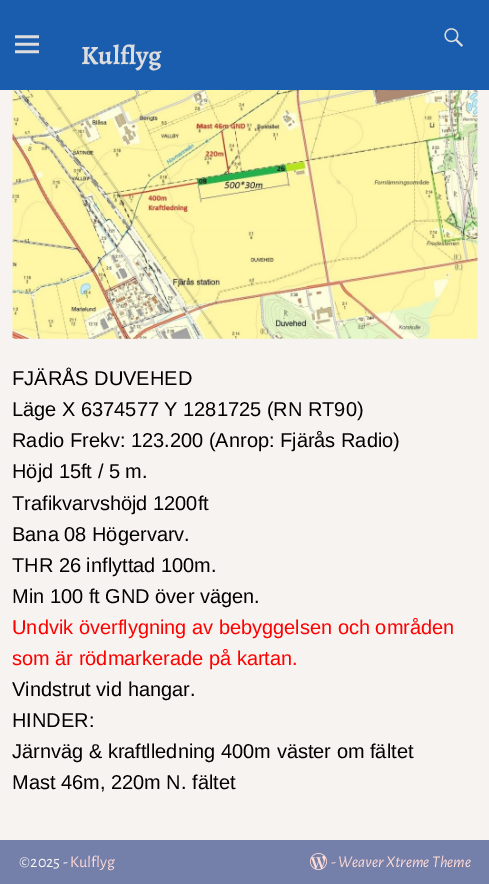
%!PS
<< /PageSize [489 884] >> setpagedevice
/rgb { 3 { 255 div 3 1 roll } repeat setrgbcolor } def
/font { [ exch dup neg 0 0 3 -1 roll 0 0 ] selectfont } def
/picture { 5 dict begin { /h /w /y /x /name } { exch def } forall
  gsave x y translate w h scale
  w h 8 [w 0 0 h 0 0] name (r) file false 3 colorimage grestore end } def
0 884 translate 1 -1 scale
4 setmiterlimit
246 243 240 rgb
0 0 489 884 rectfill
26 93 175 rgb
0 0 489 90 rectfill
(img/1.rgb) 15 35 24 19 picture
(img/2.rgb) 444 28 19 19 picture
(img/3.rgb) 12 90 466 249 picture
116 127 170 rgb
0 840 489 44 rectfill
(img/4.rgb) 310 853 17 17 picture
/Alegreya-Bold 26.5 font
221 221 221 rgb
81 64 moveto (Kulflyg) show
/LiberationSans-Regular 20 font
0 0 0 rgb
[
  [(FJÄRÅS DUVEHED) 12 385]
  [(Läge X 6374577 Y 1281725 \(RN RT90\)) 12 416]
  [(Radio Frekv: 123.200 \(Anrop: Fjärås Radio\)) 12 447]
  [(Höjd 15ft / 5 m.) 12 478]
  [(Trafikvarvshöjd 1200ft) 12 510]
  [(Bana 08 Högervarv.) 12 541]
  [(THR 26 inflyttad 100m.) 12 572]
  [(Min 100 ft GND över vägen.) 12 603]
] { aload pop moveto show } forall
255 0 0 rgb
12 634 moveto (Undvik överflygning av bebyggelsen och områden) show
12 665 moveto (som är rödmarkerade på kartan.) show
0 0 0 rgb
[
  [(Vindstrut vid hangar.) 12 696]
  [(HINDER:) 12 727]
  [(Järnväg & kraftlledning 400m väster om fältet) 12 758]
  [(Mast 46m, 220m N. fältet) 12 789]
] { aload pop moveto show } forall
/AlegreyaSans-Regular 16.25 font
249 249 249 rgb
19 867 moveto (©2025 -) show
255 219 212 rgb
70 867 moveto (Kulflyg) show
/AlegreyaSans-Italic 16.25 font
331 867 moveto (- Weaver Xtreme Theme) show
showpage
